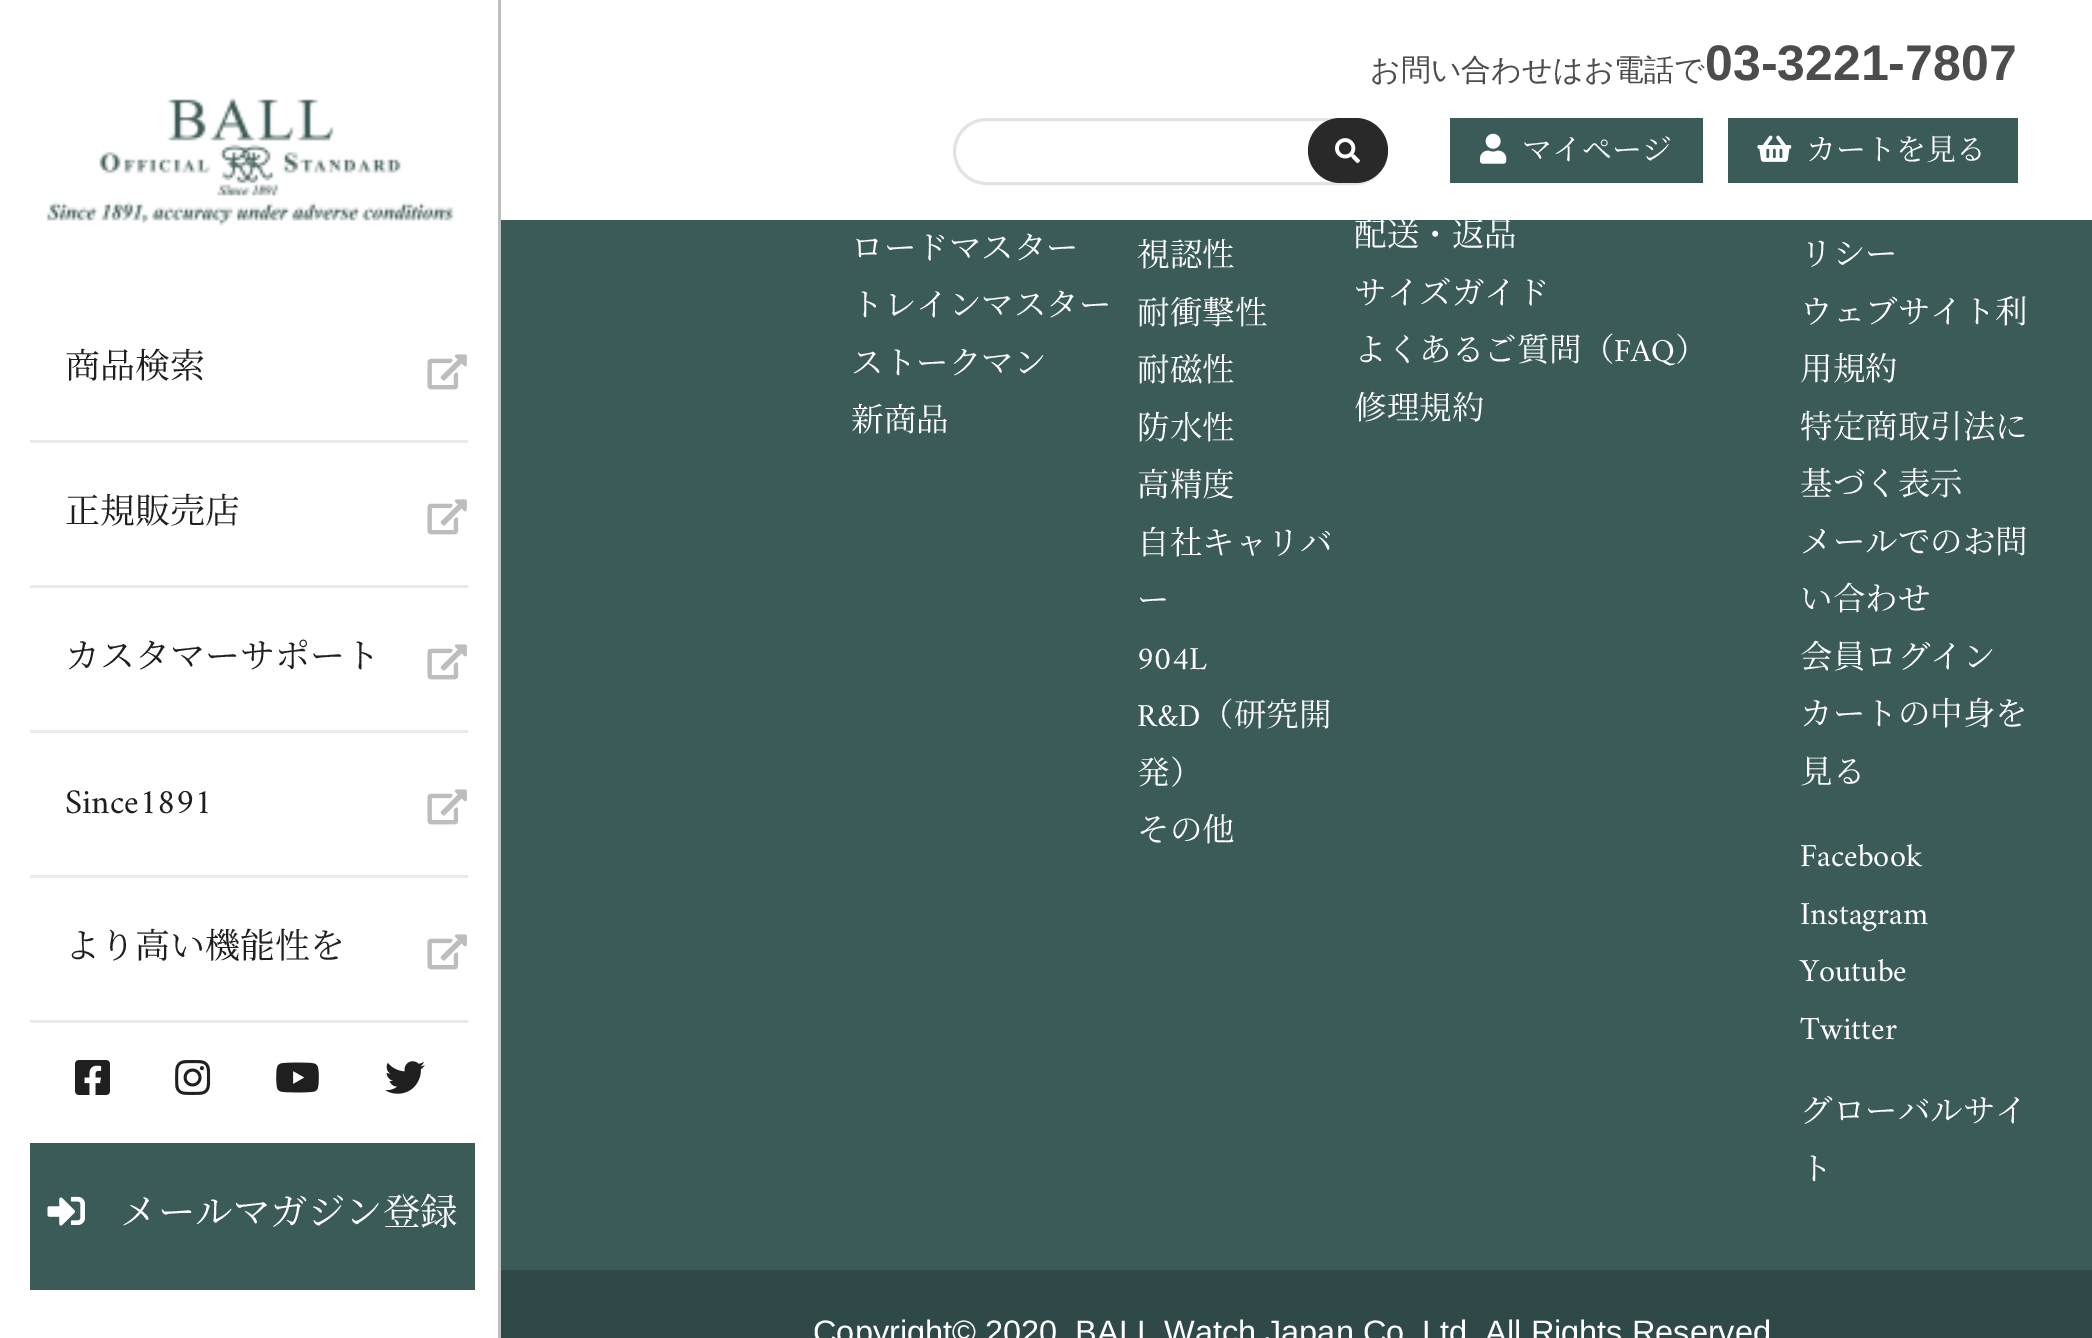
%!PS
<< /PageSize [2092 1338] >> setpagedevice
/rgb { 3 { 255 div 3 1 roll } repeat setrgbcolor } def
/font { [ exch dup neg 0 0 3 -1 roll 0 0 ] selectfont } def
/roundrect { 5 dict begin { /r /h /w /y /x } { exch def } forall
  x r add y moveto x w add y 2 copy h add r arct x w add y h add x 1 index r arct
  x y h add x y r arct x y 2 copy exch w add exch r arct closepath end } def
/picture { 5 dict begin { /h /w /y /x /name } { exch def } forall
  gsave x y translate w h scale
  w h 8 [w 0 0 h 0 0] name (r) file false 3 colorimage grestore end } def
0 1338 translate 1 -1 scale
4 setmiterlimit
255 255 255 rgb
0 0 2092 1338 rectfill
227 227 227 rgb
3 setlinewidth
954.5 119.5 432 64 32 roundrect stroke
41 41 41 rgb
1308 118 80 65 32.5 roundrect fill
(img/1.rgb) 1335 138 25 26 picture
59 91 89 rgb
1450 118 253 65 rectfill
(img/2.rgb) 1480 133 27 31 picture
1728 118 290 65 rectfill
(img/3.rgb) 1757 135 35 27 picture
191 191 191 rgb
498 0 3 1338 rectfill
(img/4.rgb) 46 97 408 129 picture
234 234 234 rgb
30 440 438 3 rectfill
(img/5.rgb) 427 354 40 36 picture
30 585 438 3 rectfill
(img/5.rgb) 427 499 40 36 picture
30 730 438 3 rectfill
(img/5.rgb) 427 644 40 36 picture
30 875 438 3 rectfill
(img/5.rgb) 427 789 40 36 picture
30 1020 438 3 rectfill
(img/5.rgb) 427 934 40 36 picture
(img/6.rgb) 75 1060 35 35 picture
(img/7.rgb) 175 1060 36 35 picture
(img/8.rgb) 276 1062 43 31 picture
(img/9.rgb) 385 1061 40 33 picture
59 91 89 rgb
30 1143 445 147 rectfill
(img/10.rgb) 47 1196 38 30 picture
501 220 1591 1050 rectfill
46 73 71 rgb
501 1270 1591 68 rectfill
/WenQuanYiZenHei-Medium 30 font
76 76 76 rgb
1370 80 moveto (お問い合わせはお電話で) show
/LiberationSans-Bold 50 font
1705 80 moveto (03-3221-7807) show
/NotoSerifJP-Regular 30 font
255 255 255 rgb
1522 160 moveto (マイページ) show
1806 160 moveto (カートを見る) show
/NotoSerifJP-Regular 35 font
31 31 31 rgb
[
  [(商品検索) 65 378]
  [(正規販売店) 65 523]
  [(カスタマーサポート) 65 668]
] { aload pop moveto show } forall
/Amiri-Regular 35 font
65 813 moveto (Since1891) show
/NotoSerifJP-Regular 35 font
65 958 moveto (より高い機能性を) show
/NotoSerifJP-Regular 37.5 font
255 255 255 rgb
120 1225 moveto (メールマガジン登録) show
/NotoSerifJP-Regular 32.5 font
[
  [(ロードマスター) 851 259]
  [(トレインマスター) 851 316]
  [(ストークマン) 851 374]
  [(新商品) 851 431]
  [(視認性) 1137 266]
  [(耐衝撃性) 1137 324]
  [(耐磁性) 1137 381]
  [(防水性) 1137 439]
  [(高精度) 1137 496]
  [(自社キャリバ) 1137 554]
  [(ー) 1137 611]
] { aload pop moveto show } forall
/Amiri-Regular 32.5 font
1137 669 moveto (904L) show
1137 726 moveto (R&D) show
/NotoSerifJP-Regular 32.5 font
[
  [(（研究開) 1201 726]
  [(発）) 1137 784]
  [(その他) 1137 841]
  [(配送・返品) 1354 246]
  [(サイズガイド) 1354 304]
  [(よくあるご質問（) 1354 361]
] { aload pop moveto show } forall
/Amiri-Regular 32.5 font
1614 361 moveto (FAQ) show
/NotoSerifJP-Regular 32.5 font
[
  [(）) 1675 361]
  [(修理規約) 1354 419]
  [(リシー) 1800 265]
  [(ウェブサイト利) 1800 323]
  [(用規約) 1800 380]
  [(特定商取引法に) 1800 438]
  [(基づく表示) 1800 495]
  [(メールでのお問) 1800 553]
  [(い合わせ) 1800 610]
  [(会員ログイン) 1800 668]
  [(カートの中身を) 1800 725]
  [(見る) 1800 783]
] { aload pop moveto show } forall
/Amiri-Regular 32.5 font
[
  [(Facebook) 1800 866]
  [(Instagram) 1800 924]
  [(Youtube) 1800 981]
  [(Twitter) 1800 1039]
] { aload pop moveto show } forall
/NotoSerifJP-Regular 32.5 font
1800 1122 moveto (グローバルサイ) show
1800 1180 moveto (ト) show
/LiberationSans-Regular 32.5 font
813 1343 moveto (Copyright© 2020. BALL Watch Japan Co. Ltd. All Rights Reserved) show
showpage
